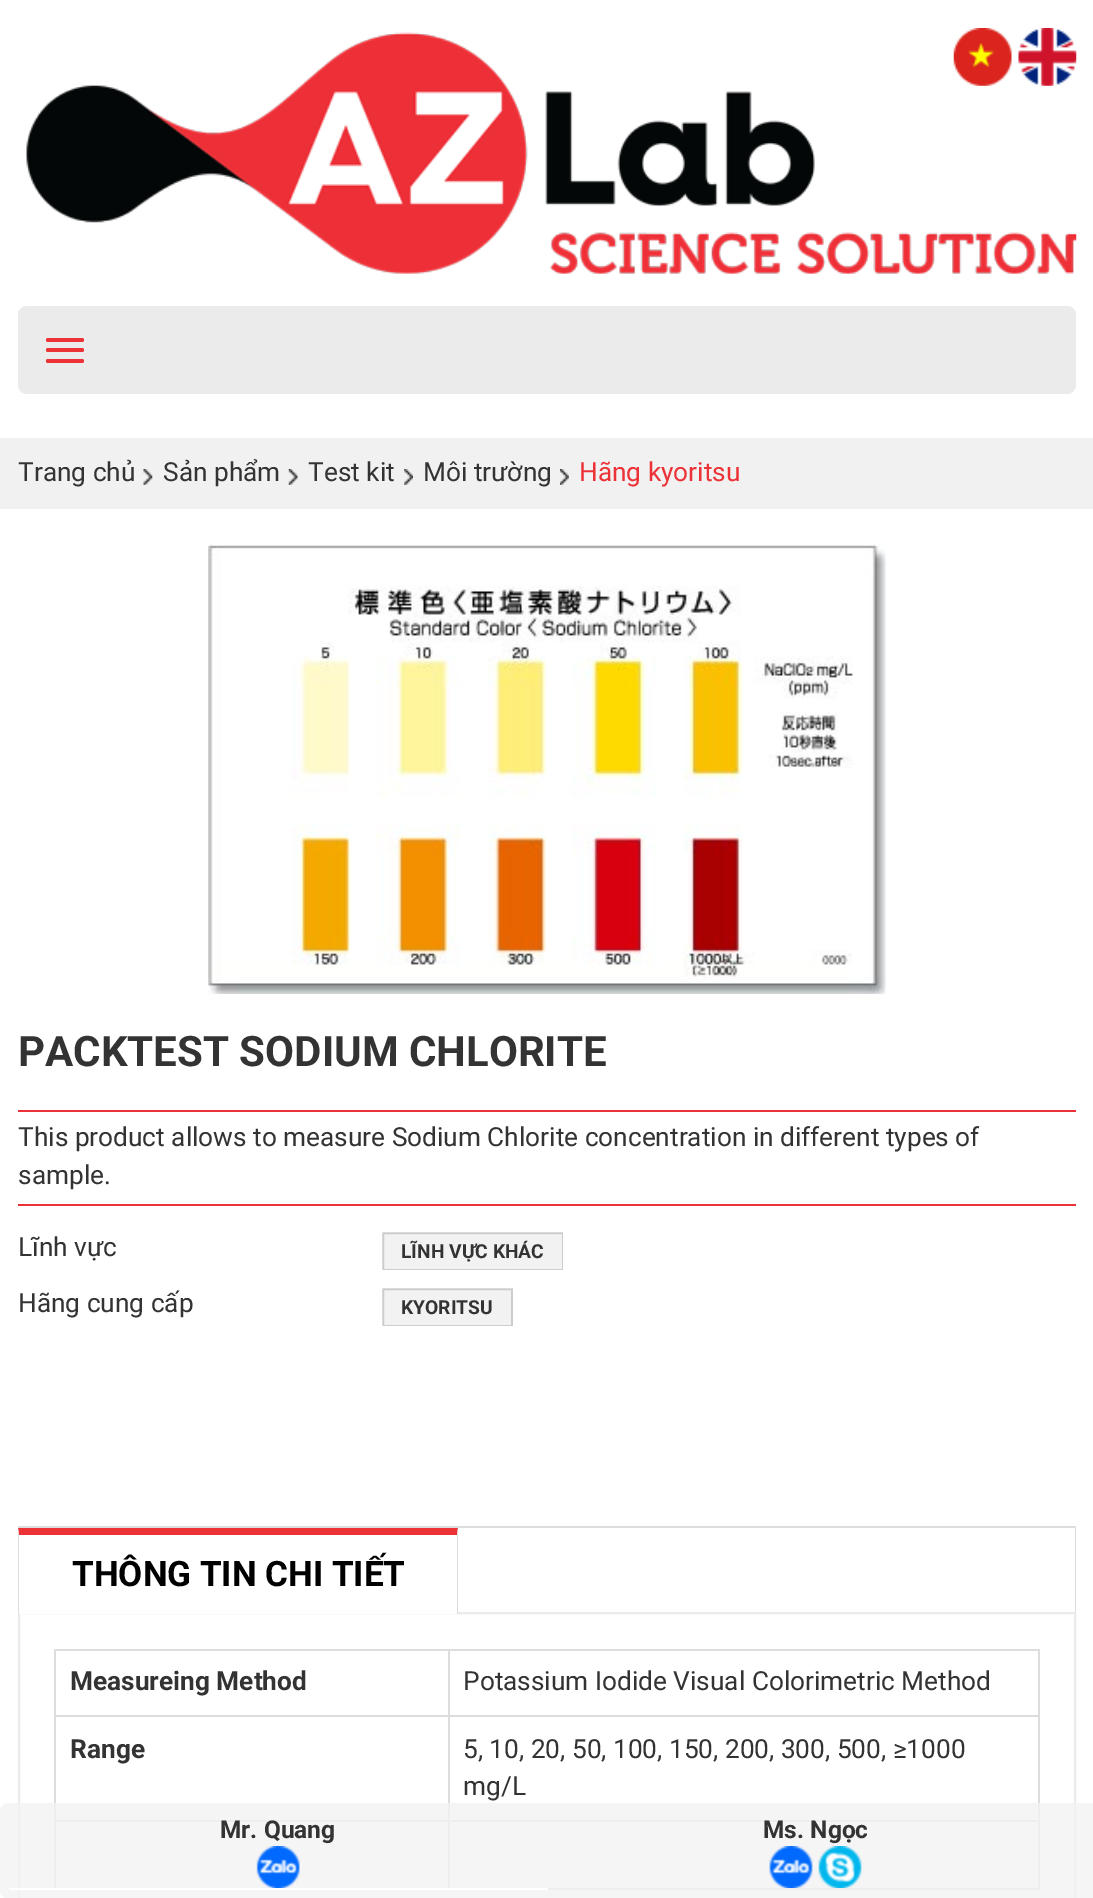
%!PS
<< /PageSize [1093 1898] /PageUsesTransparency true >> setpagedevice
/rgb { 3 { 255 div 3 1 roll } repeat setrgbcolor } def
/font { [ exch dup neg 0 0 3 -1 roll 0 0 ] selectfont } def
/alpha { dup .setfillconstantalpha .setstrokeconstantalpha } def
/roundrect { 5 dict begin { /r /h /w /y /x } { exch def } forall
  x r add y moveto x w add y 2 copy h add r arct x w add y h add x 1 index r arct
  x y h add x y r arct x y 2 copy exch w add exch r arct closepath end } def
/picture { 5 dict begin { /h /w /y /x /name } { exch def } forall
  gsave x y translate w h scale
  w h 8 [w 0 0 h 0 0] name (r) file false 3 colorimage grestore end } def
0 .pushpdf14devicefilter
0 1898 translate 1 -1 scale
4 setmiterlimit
255 255 255 rgb
0 0 1093 1898 rectfill
(img/3.rgb) 26 32 1051 242 picture
(img/1.rgb) 953 28 59 58 picture
(img/2.rgb) 1018 28 59 58 picture
235 235 235 rgb
18 306 1058 88 9 roundrect fill
236 49 55 rgb
46 338 38 4 2 roundrect fill
46 348 38 4 2 roundrect fill
46 359 38 4 2 roundrect fill
241 241 241 rgb
0 438 1093 71 rectfill
(img/4.rgb) 143 469 10 16 picture
(img/5.rgb) 288 469 10 16 picture
(img/6.rgb) 404 469 9 16 picture
(img/7.rgb) 560 469 9 16 picture
(img/8.rgb) 208 544 678 450 picture
236 49 55 rgb
18 1110 1058 2 rectfill
18 1204 1058 2 rectfill
242 242 242 rgb
383 1233 moveto 563 1233 lineto 563 1270 lineto 383 1270 lineto closepath gsave fill grestore
204 204 204 rgb
2 setlinewidth
stroke
255 255 255 rgb
381 1231 183 40 rectstroke
242 242 242 rgb
383 1289 moveto 512 1289 lineto 512 1326 lineto 383 1326 lineto closepath gsave fill grestore
204 204 204 rgb
stroke
255 255 255 rgb
381 1287 133 40 rectstroke
221 221 221 rgb
18 1526 1058 2 rectfill
1075 1526 1 88 rectfill
235 235 235 rgb
19 1613 1056 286 rectstroke
255 255 255 rgb
19 1612 438 2 rectfill
236 49 55 rgb
18 1528 moveto 458 1528 lineto 457 1535 lineto 19 1535 lineto closepath fill
221 221 221 rgb
458 1528 moveto 458 1614 lineto 457 1614 lineto 457 1535 lineto closepath fill
18 1614 moveto 18 1528 lineto 19 1535 lineto 19 1614 lineto closepath fill
[
  [54 1649 986 2 221 221 221]
  [1038 1649 2 241 221 221 221]
  [548 1888 492 2 221 221 221]
  [54 1649 2 241 221 221 221]
  [448 1715 592 2 221 221 221]
  [448 1820 592 2 221 221 221]
  [448 1820 2 70 221 221 221]
  [54 1820 396 2 221 221 221]
  [448 1715 2 107 221 221 221]
  [54 1715 396 2 221 221 221]
  [448 1649 2 68 221 221 221]
] { aload pop rgb rectfill } forall
0.8 alpha
242 242 242 rgb
9 1803 moveto 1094 1803 lineto 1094 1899 lineto 9 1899 lineto 4 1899 0 1895 0 1890 curveto 0 1812 lineto 0 1807 4 1803 9 1803 curveto closepath fill
1 alpha
255 255 255 rgb
9 1888 539 2 rectfill
(img/9.rgb) 256 1846 44 42 picture
(img/10.rgb) 769 1846 44 42 picture
(img/11.rgb) 818 1846 44 42 picture
/Roboto-Regular 26.25 font
51 51 51 rgb
[
  [(Trang chủ) 18 481]
  [(Sản phẩm) 163 481]
  [(Test kit) 308 481]
  [(Môi trường) 423 481]
] { aload pop moveto show } forall
236 49 55 rgb
579 481 moveto (Hãng kyoritsu) show
/Roboto-Bold 42 font
51 51 51 rgb
18 1066 moveto (PACKTEST SODIUM CHLORITE) show
/Roboto-Regular 26.25 font
[
  [(This product allows to measure Sodium Chlorite concentration in different types of) 18 1146]
  [(sample.) 18 1184]
  [(Lĩnh vực) 18 1256]
] { aload pop moveto show } forall
/Roboto-Bold 19.25 font
401 1258 moveto (LĨNH VỰC KHÁC) show
/Roboto-Regular 26.25 font
18 1312 moveto (Hãng cung cấp) show
/Roboto-Bold 19.25 font
401 1314 moveto (KYORITSU) show
/Roboto-Bold 35 font
0 0 0 rgb
72 1586 moveto (THÔNG TIN CHI TIẾT) show
/Roboto-Bold 26.25 font
51 51 51 rgb
70 1690 moveto (Measureing Method) show
/Roboto-Regular 26.25 font
463 1690 moveto (Potassium Iodide Visual Colorimetric Method) show
/Roboto-Bold 26.25 font
70 1758 moveto (Range) show
/Roboto-Regular 26.25 font
463 1758 moveto (5, 10, 20, 50, 100, 150, 200, 300, 500, ≥1000) show
463 1795 moveto (mg/L) show
/Roboto-Bold 24.5 font
220 1838 moveto (Mr. Quang) show
763 1838 moveto (Ms. Ngọc) show
.poppdf14devicefilter showpage
